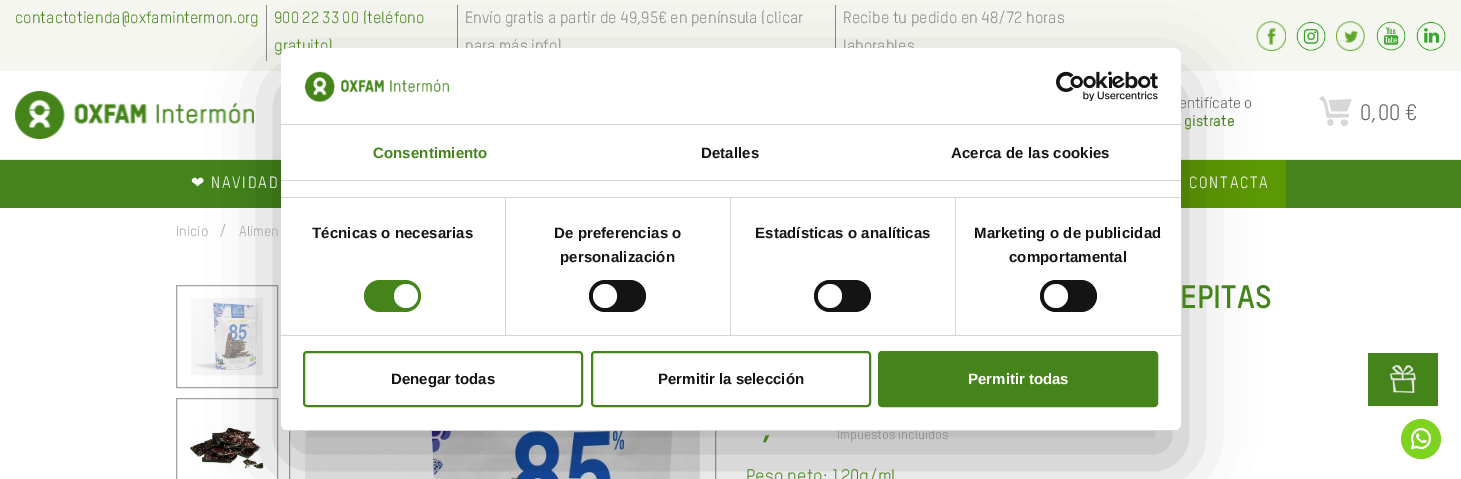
%!PS
<< /PageSize [1461 479] /PageUsesTransparency true >> setpagedevice
/rgb { 3 { 255 div 3 1 roll } repeat setrgbcolor } def
/font { [ exch dup neg 0 0 3 -1 roll 0 0 ] selectfont } def
/alpha { dup .setfillconstantalpha .setstrokeconstantalpha } def
/circle { newpath 0 360 arc closepath } def
/roundrect { 5 dict begin { /r /h /w /y /x } { exch def } forall
  x r add y moveto x w add y 2 copy h add r arct x w add y h add x 1 index r arct
  x y h add x y r arct x y 2 copy exch w add exch r arct closepath end } def
/shadow { 12 dict begin { /a /b /q /h /w /y /x } { exch def } forall gsave /was 0 def
  9 -2 -9 { dup b mul 4 div /e exch def 1 sub .425 mul 2.718 exch exp 1 add a .99 .min exch div /now exch def
    1 1 now sub 1 was sub div sub alpha /was now def
    w h .min e 2 mul add 0 gt { x e sub y e sub w e 2 mul add h e 2 mul add
      q e add b .6 mul add w h .min 2 div e add .min 0 .max roundrect fill } if } for grestore end } def
/picture { 5 dict begin { /h /w /y /x /name } { exch def } forall
  gsave x y translate w h scale
  w h 8 [w 0 0 h 0 0] name (r) file false 3 colorimage grestore end } def
0 .pushpdf14devicefilter
0 479 translate 1 -1 scale
4 setmiterlimit
255 255 255 rgb
0 0 1461 479 rectfill
[
  [0 0 1461 71 246 246 240]
  [266 5 1 56 138 138 138]
  [457 5 1 43 138 138 138]
  [835 5 1 43 138 138 138]
] { aload pop rgb rectfill } forall
(img/1.rgb) 1256 21 30 30 picture
(img/2.rgb) 1296 21 30 30 picture
(img/3.rgb) 1336 21 29 30 picture
(img/4.rgb) 1376 21 30 30 picture
(img/5.rgb) 1416 21 30 30 picture
238 238 238 rgb
0 159 1461 1 rectfill
(img/6.rgb) 15 91 239 48 picture
(img/7.rgb) 1319 96 33 30 picture
68 132 26 rgb
0 160 1461 48 rectfill
92 151 4 rgb
1181 160 105 48 rectfill
162 162 162 rgb
176.5 285.5 101 102 rectstroke
(img/8.rgb) 191 298 72 78 picture
176.5 398.5 101 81 rectstroke
(img/9.rgb) 190 427 74 42 picture
289.5 285.5 426 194 rectstroke
(img/10.rgb) 305 431 395 48 picture
68 132 26 rgb
1368 353 70 53 rectfill
(img/11.rgb) 1390 365 26 28 picture
0 0 0 rgb
281 80 900 383 8 34 0.3 shadow
126 211 33 rgb
1421 439 20 circle fill
(img/14.rgb) 1411 428 20 22 picture
/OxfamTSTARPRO-Regular 16 font
68 132 26 rgb
[
  [(contactotienda@oxfamintermon.org) 15 23]
  [(900 22 33 00 \(teléfono) 274 23]
  [(gratuito\)) 274 51]
] { aload pop moveto show } forall
135 135 135 rgb
[
  [(Envío gratis a partir de 49,95€ en península \(clicar) 465 23]
  [(para más info\)) 465 51]
  [(Recibe tu pedido en 48/72 horas) 843 23]
  [(laborables) 843 51]
] { aload pop moveto show } forall
/OxfamTSTARPRO-Regular 15 font
98 98 98 rgb
1179 108 moveto (entifícate o) show
/OxfamTSTARPRO-Medium 15 font
68 132 26 rgb
1184 126 moveto (gistrate) show
/OxfamTSTARPRO-Regular 22 font
98 98 98 rgb
1360 120 moveto (0,00 €) show
/DejaVuSans-Regular 16 font
255 255 255 rgb
191 188 moveto 1.75 0 (❤) ashow
/OxfamTSTARPRO-Regular 16 font
211 188 moveto 1.75 0 (NAVIDAD) ashow
1189 188 moveto 1.75 0 (CONTACTA) ashow
/OxfamTSTARPRO-Regular 14 font
162 162 162 rgb
176 236 moveto (Inicio) show
/OxfamTSTARPRO-Regular 16 font
219 236 moveto (/) show
/OxfamTSTARPRO-Regular 14 font
239 236 moveto (Alimen) show
/OxfamTSTARPRO-Bold 32 font
68 132 26 rgb
1180 308 moveto (EPITAS) show
762 439 moveto (,) show
/OxfamTSTARPRO-Regular 13 font
135 135 135 rgb
837 439 moveto (Impuestos incluidos) show
/OxfamTSTARPRO-Regular 18 font
68 132 26 rgb
746 482 moveto (Peso neto: 120g/ml) show
255 255 255 rgb
281 48 900 383 8 roundrect fill
214 214 214 rgb
281 124 900 1 rectfill
(img/12.rgb) 304 71 146 32 picture
(img/13.rgb) 1056 71 102 30 picture
281 180 900 1 rectfill
/LiberationSans-Bold 15 font
68 132 26 rgb
373 158 moveto 0.1 0 (Consentimiento) ashow
20 20 20 rgb
701 158 moveto 0.1 0 (Detalles) ashow
951 158 moveto 0.1 0 (Acerca de las cookies) ashow
[
  [281 197 900 1 214 214 214]
  [281 335 900 1 214 214 214]
  [505 198 1 137 214 214 214]
] { aload pop rgb rectfill } forall
20 20 20 rgb
312 238 moveto 0.1 0 (Técnicas o necesarias) ashow
68 132 26 rgb
364 280 57 32 16 roundrect fill
255 255 255 rgb
406 296 12 circle fill
214 214 214 rgb
730 198 1 137 rectfill
20 20 20 rgb
554 238 moveto 0.1 0 (De preferencias o) ashow
560 262 moveto 0.1 0 (personalización) ashow
589 280 57 32 16 roundrect fill
255 255 255 rgb
605 296 12 circle fill
214 214 214 rgb
955 198 1 137 rectfill
20 20 20 rgb
755 238 moveto 0.1 0 (Estadísticas o analíticas) ashow
814 280 57 32 16 roundrect fill
255 255 255 rgb
830 296 12 circle fill
20 20 20 rgb
974 238 moveto 0.1 0 (Marketing o de publicidad) ashow
1009 262 moveto 0.1 0 (comportamental) ashow
1040 280 57 32 16 roundrect fill
255 255 255 rgb
1056 296 12 circle fill
gsave
281 48 900 383 8 roundrect clip newpath
214 214 214 rgb
281 430 900 1 rectfill
grestore
68 132 26 rgb
2 setlinewidth
304 352 278 54 3 roundrect stroke
20 20 20 rgb
391 384 moveto (Denegar todas) show
68 132 26 rgb
592 352 278 54 3 roundrect stroke
20 20 20 rgb
658 384 moveto (Permitir la selección) show
68 132 26 rgb
879 352 278 54 3 roundrect gsave fill grestore
stroke
255 255 255 rgb
968 384 moveto (Permitir todas) show
.poppdf14devicefilter showpage
